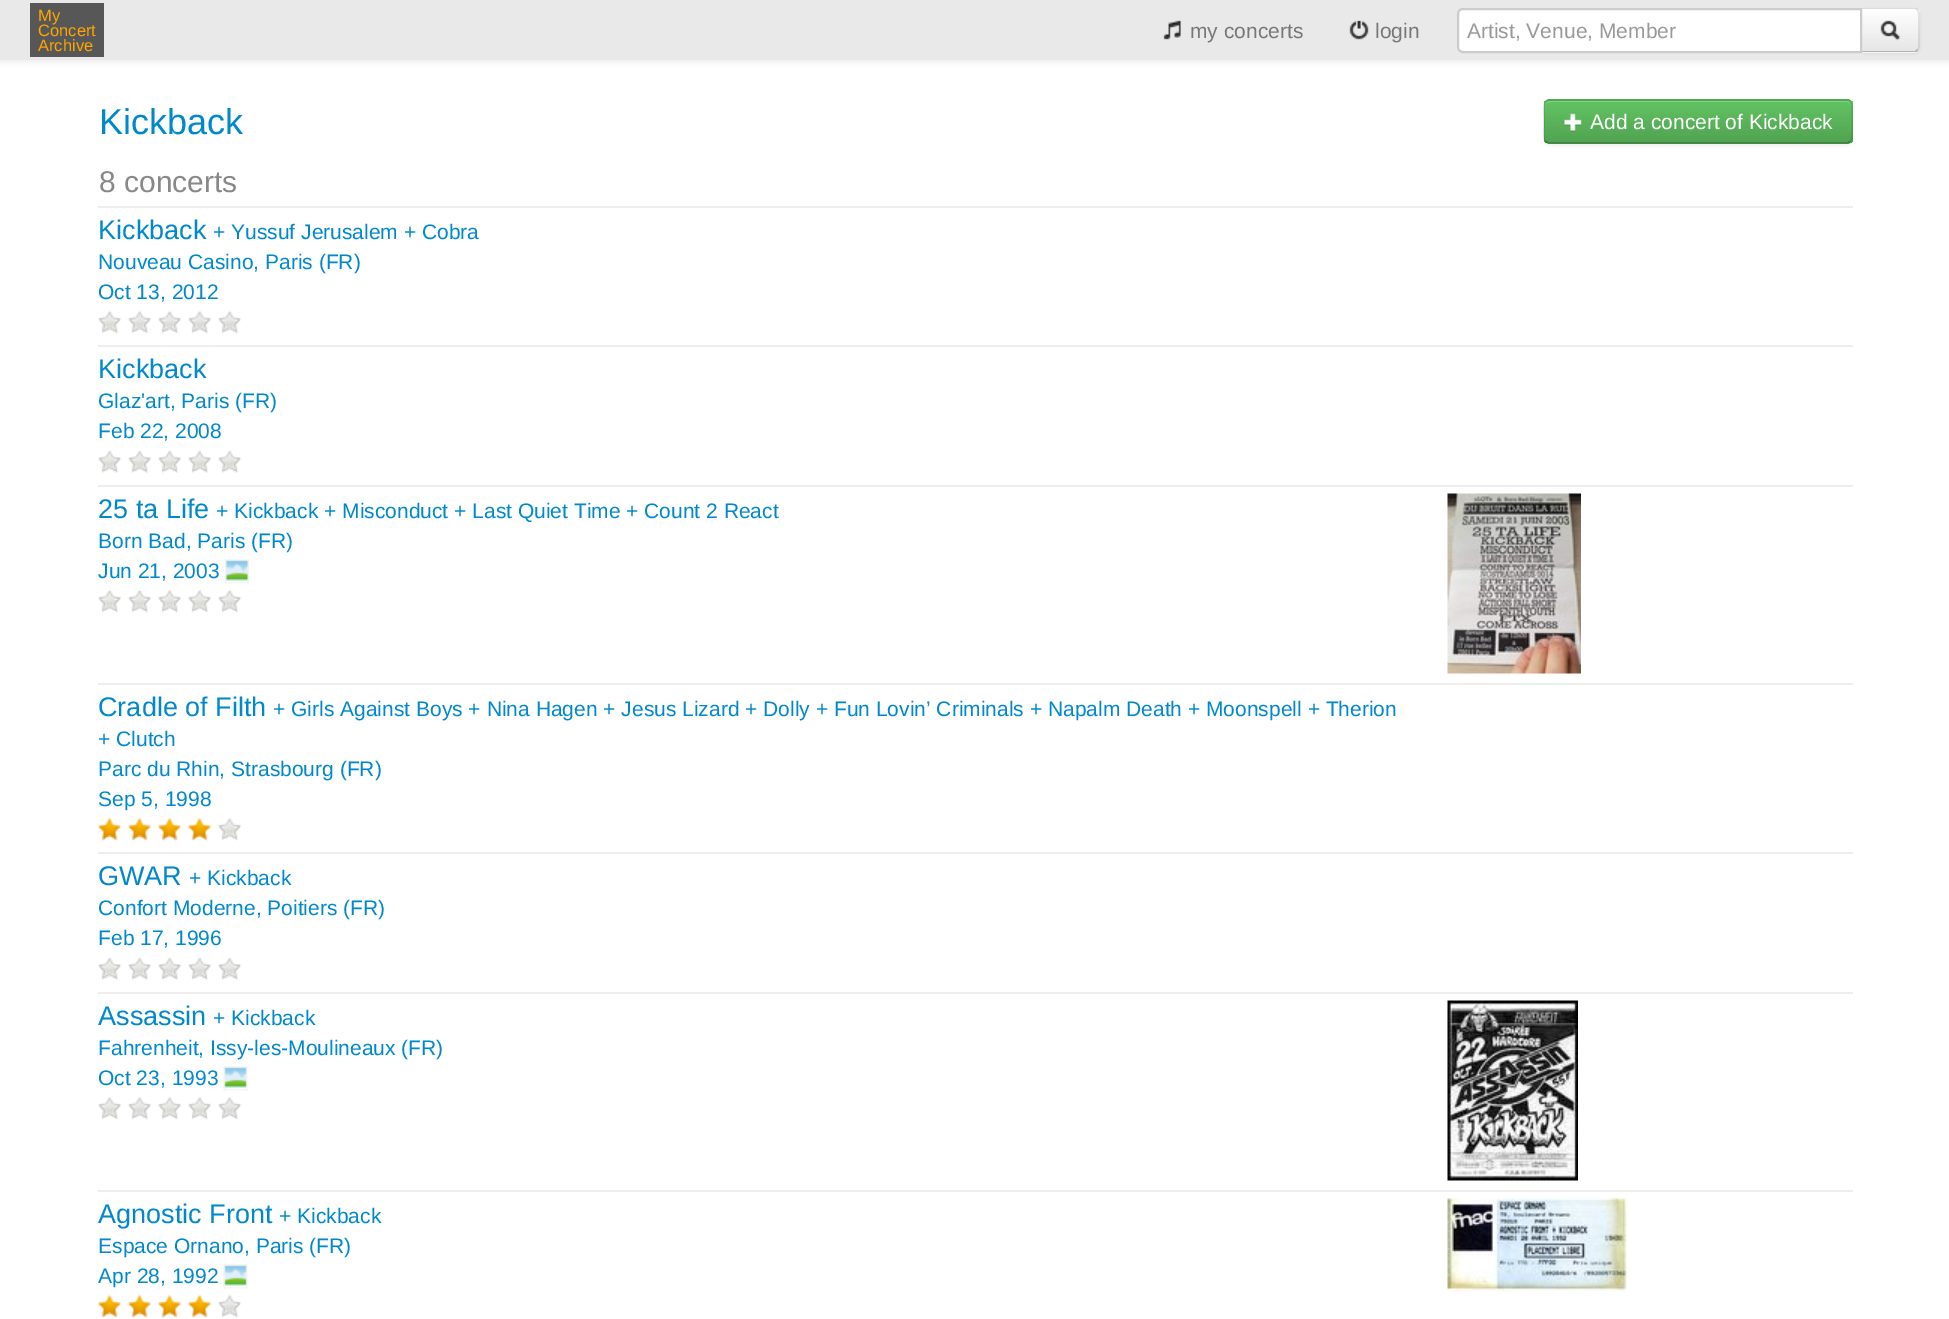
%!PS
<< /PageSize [1949 1319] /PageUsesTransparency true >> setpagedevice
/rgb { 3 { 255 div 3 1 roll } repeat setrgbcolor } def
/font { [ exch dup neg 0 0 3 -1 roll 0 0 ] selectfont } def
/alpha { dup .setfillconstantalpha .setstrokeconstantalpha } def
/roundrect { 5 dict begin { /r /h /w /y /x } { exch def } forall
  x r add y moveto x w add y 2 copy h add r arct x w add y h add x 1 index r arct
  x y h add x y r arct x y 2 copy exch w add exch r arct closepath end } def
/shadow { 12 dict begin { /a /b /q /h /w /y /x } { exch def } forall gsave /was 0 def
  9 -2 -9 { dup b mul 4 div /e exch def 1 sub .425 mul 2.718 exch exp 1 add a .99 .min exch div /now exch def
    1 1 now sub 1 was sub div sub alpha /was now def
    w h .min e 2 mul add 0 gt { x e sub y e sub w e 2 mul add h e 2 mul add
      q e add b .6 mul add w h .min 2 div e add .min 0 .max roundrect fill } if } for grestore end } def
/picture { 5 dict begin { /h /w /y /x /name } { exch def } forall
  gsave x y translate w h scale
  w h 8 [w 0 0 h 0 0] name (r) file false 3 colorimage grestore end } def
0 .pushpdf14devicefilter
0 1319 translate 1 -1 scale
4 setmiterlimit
255 255 255 rgb
0 0 1949 1319 rectfill
0 0 0 rgb
0 2 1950 60 0 3 0.07 shadow
233 233 233 rgb
0 0 1949 60 rectfill
87 87 87 rgb
30 3 74 54 rectfill
(img/1.rgb) 1163 20 18 20 picture
(img/2.rgb) 1349 20 20 20 picture
0 0 0 rgb
1860 9 60 45 6 1.5 0.05 shadow
245 245 245 rgb
1860 8 moveto 1914 8 lineto 1917.5 8 1920 10.5 1920 14 curveto 1920 47 lineto 1920 50.5 1917.5 53 1914 53 curveto 1860 53 lineto closepath fill
gsave
1860 8 moveto 1914 8 lineto 1917.5 8 1920 10.5 1920 14 curveto 1920 47 lineto 1920 50.5 1917.5 53 1914 53 curveto 1860 53 lineto closepath clip newpath
gsave 1862 9 moveto 1920 9 lineto 1920 51 lineto 1862 51 lineto closepath clip newpath
<< /ShadingType 2 /ColorSpace /DeviceRGB /Coords [1890 9 1890 51] /Extend [true true] /Function << /FunctionType 2 /Domain [0 1] /C0 [1 1 1] /C1 [0.902 0.902 0.902] /N 1 >> >> shfill grestore
grestore
0.2 alpha
255 255 255 rgb
1862 10 moveto 1897 10 lineto 1918 10 1918 6 1918 26 curveto 1918 49 lineto 1919 48 1919 47 1919 46 curveto 1919 14 lineto 1919 11 1917 9 1914 9 curveto 1862 9 lineto closepath fill
0.1 alpha
0 0 0 rgb
1862 9 moveto 1915 9 lineto 1917 11 lineto 1918 9 lineto 1917 8 1915 8 1914 8 curveto 1860 8 lineto 1862 10 lineto closepath fill
1918 9 moveto 1919 10 1920 12 1920 14 curveto 1920 46 lineto 1920 48 1919 50 1918 51 curveto 1917 49 lineto 1918 49 1918 47 1918 46 curveto 1918 14 lineto 1918 13 1918 11 1917 11 curveto closepath fill
1 alpha
179 179 179 rgb
1918 51 moveto 1917 52 1915 52 1914 52 curveto 1860 52 lineto 1862 50 lineto 1862 51 lineto 1915 51 lineto 1917 49 lineto closepath fill
255 255 255 rgb
1463 9 moveto 1861 9 lineto 1861 52 lineto 1463 52 lineto 1460 52 1458 50 1458 47 curveto 1458 14 lineto 1458 11 1460 9 1463 9 curveto closepath gsave fill grestore
204 204 204 rgb
2 setlinewidth
stroke
(img/3.rgb) 1880 20 21 21 picture
0 0 0 rgb
1544 101 309 45 6 1.5 0.05 shadow
91 183 91 rgb
1544 99 309 45 6 roundrect fill
gsave
1544 99 309 45 6 roundrect clip newpath
gsave 1544 101 moveto 1853 101 lineto 1853 143 lineto 1544 143 lineto closepath clip newpath
<< /ShadingType 2 /ColorSpace /DeviceRGB /Coords [1698 100 1698 143] /Extend [true true] /Function << /FunctionType 2 /Domain [0 1] /C0 [0.384 0.769 0.384] /C1 [0.318 0.639 0.318] /N 1 >> >> shfill grestore
grestore
129 207 129 rgb
1550 102 moveto 1846 102 lineto 1849 102 1851 104 1851 106 curveto 1851 103 1849 101 1846 101 curveto 1550 101 lineto 1547 101 1545 103 1545 106 curveto 1545 104 1547 102 1550 102 curveto closepath fill
0.25 alpha
0 0 0 rgb
1.5 setlinewidth
1850 141.5 moveto 1849 142.5 1848 143 1846.5 143 curveto 1549.5 143 lineto 1548 143 1547 142.5 1546 141.5 curveto stroke
0.1 alpha
1546 141.5 moveto 1542.5 138.5 1544 130.5 1544 127 curveto 1544 116 lineto 1544 112 1542 100 1549.5 100 curveto 1846.5 100 lineto 1854 100 1852 112 1852 116 curveto 1852 127 lineto 1852 130.5 1853.5 138.5 1850 141.5 curveto stroke
1 alpha
(img/4.rgb) 1564 113 18 19 picture
238 238 238 rgb
98 206 1755 2 rectfill
(img/5.rgb) 97 310 25 24 picture
(img/5.rgb) 127 310 25 24 picture
(img/5.rgb) 157 310 25 24 picture
(img/5.rgb) 187 310 25 24 picture
(img/5.rgb) 217 310 25 24 picture
98 345 1755 2 rectfill
(img/6.rgb) 98 450 24 23 picture
(img/6.rgb) 128 450 24 23 picture
(img/6.rgb) 158 450 24 23 picture
(img/6.rgb) 188 450 24 23 picture
(img/6.rgb) 218 450 24 23 picture
98 485 1755 2 rectfill
(img/7.rgb) 225 559 24 25 picture
(img/5.rgb) 97 589 25 24 picture
(img/5.rgb) 127 589 25 24 picture
(img/5.rgb) 157 589 25 24 picture
(img/5.rgb) 187 589 25 24 picture
(img/5.rgb) 217 589 25 24 picture
(img/8.rgb) 1447 493 134 181 picture
98 683 1755 2 rectfill
(img/9.rgb) 97 817 25 24 picture
(img/9.rgb) 127 817 25 24 picture
(img/9.rgb) 157 817 25 24 picture
(img/9.rgb) 187 817 25 24 picture
(img/5.rgb) 217 817 25 24 picture
98 852 1755 2 rectfill
(img/6.rgb) 98 957 24 23 picture
(img/6.rgb) 128 957 24 23 picture
(img/6.rgb) 158 957 24 23 picture
(img/6.rgb) 188 957 24 23 picture
(img/6.rgb) 218 957 24 23 picture
98 992 1755 2 rectfill
(img/10.rgb) 223 1066 25 25 picture
(img/5.rgb) 97 1096 25 24 picture
(img/5.rgb) 127 1096 25 24 picture
(img/5.rgb) 157 1096 25 24 picture
(img/5.rgb) 187 1096 25 24 picture
(img/5.rgb) 217 1096 25 24 picture
(img/11.rgb) 1447 1000 131 181 picture
98 1190 1755 2 rectfill
(img/10.rgb) 223 1264 25 25 picture
(img/9.rgb) 97 1294 25 24 picture
(img/9.rgb) 127 1294 25 24 picture
(img/9.rgb) 157 1294 25 24 picture
(img/9.rgb) 187 1294 25 24 picture
(img/5.rgb) 217 1294 25 24 picture
(img/12.rgb) 1447 1198 181 94 picture
/LiberationSans-Regular 16.5 font
255 165 0 rgb
[
  [(My) 38 21]
  [(Concert) 38 36]
  [(Archive) 38 51]
] { aload pop moveto show } forall
/LiberationSans-Regular 21 font
119 119 119 rgb
1190 38 moveto (my concerts) show
1375 38 moveto (login) show
153 153 153 rgb
1467 38 moveto (Artist, Venue, Member) show
/LiberationSans-Regular 36 font
0 136 204 rgb
99 134 moveto (Kickback) show
/LiberationSans-Regular 30 font
136 136 136 rgb
99 192 moveto (8 concerts) show
/LiberationSans-Regular 21 font
255 255 255 rgb
1590 129 moveto (Add a concert of Kickback) show
/LiberationSans-Regular 27 font
0 136 204 rgb
98 239 moveto (Kickback) show
/LiberationSans-Regular 21 font
[
  [(+ Yussuf Jerusalem + Cobra) 213 239]
  [(Nouveau Casino, Paris \(FR\)) 98 269]
  [(Oct 13, 2012) 98 299]
] { aload pop moveto show } forall
/LiberationSans-Regular 27 font
98 378 moveto (Kickback) show
/LiberationSans-Regular 21 font
98 408 moveto (Glaz'art, Paris \(FR\)) show
98 438 moveto (Feb 22, 2008) show
/LiberationSans-Regular 27 font
98 518 moveto (25 ta Life) show
/LiberationSans-Regular 21 font
[
  [(+ Kickback + Misconduct + Last Quiet Time + Count 2 React) 216 518]
  [(Born Bad, Paris \(FR\)) 98 548]
  [(Jun 21, 2003) 98 578]
] { aload pop moveto show } forall
/LiberationSans-Regular 27 font
98 716 moveto (Cradle of Filth) show
/LiberationSans-Regular 21 font
[
  [(+ Girls Against Boys + Nina Hagen + Jesus Lizard + Dolly + Fun Lovin’ Criminals + Napalm Death + Moonspell + Therion) 273 716]
  [(+ Clutch) 98 746]
  [(Parc du Rhin, Strasbourg \(FR\)) 98 776]
  [(Sep 5, 1998) 98 806]
] { aload pop moveto show } forall
/LiberationSans-Regular 27 font
98 885 moveto (GWAR) show
/LiberationSans-Regular 21 font
[
  [(+ Kickback) 189 885]
  [(Confort Moderne, Poitiers \(FR\)) 98 915]
  [(Feb 17, 1996) 98 945]
] { aload pop moveto show } forall
/LiberationSans-Regular 27 font
98 1025 moveto (Assassin) show
/LiberationSans-Regular 21 font
[
  [(+ Kickback) 213 1025]
  [(Fahrenheit, Issy-les-Moulineaux \(FR\)) 98 1055]
  [(Oct 23, 1993) 98 1085]
] { aload pop moveto show } forall
/LiberationSans-Regular 27 font
98 1223 moveto (Agnostic Front) show
/LiberationSans-Regular 21 font
[
  [(+ Kickback) 279 1223]
  [(Espace Ornano, Paris \(FR\)) 98 1253]
  [(Apr 28, 1992) 98 1283]
] { aload pop moveto show } forall
.poppdf14devicefilter showpage
